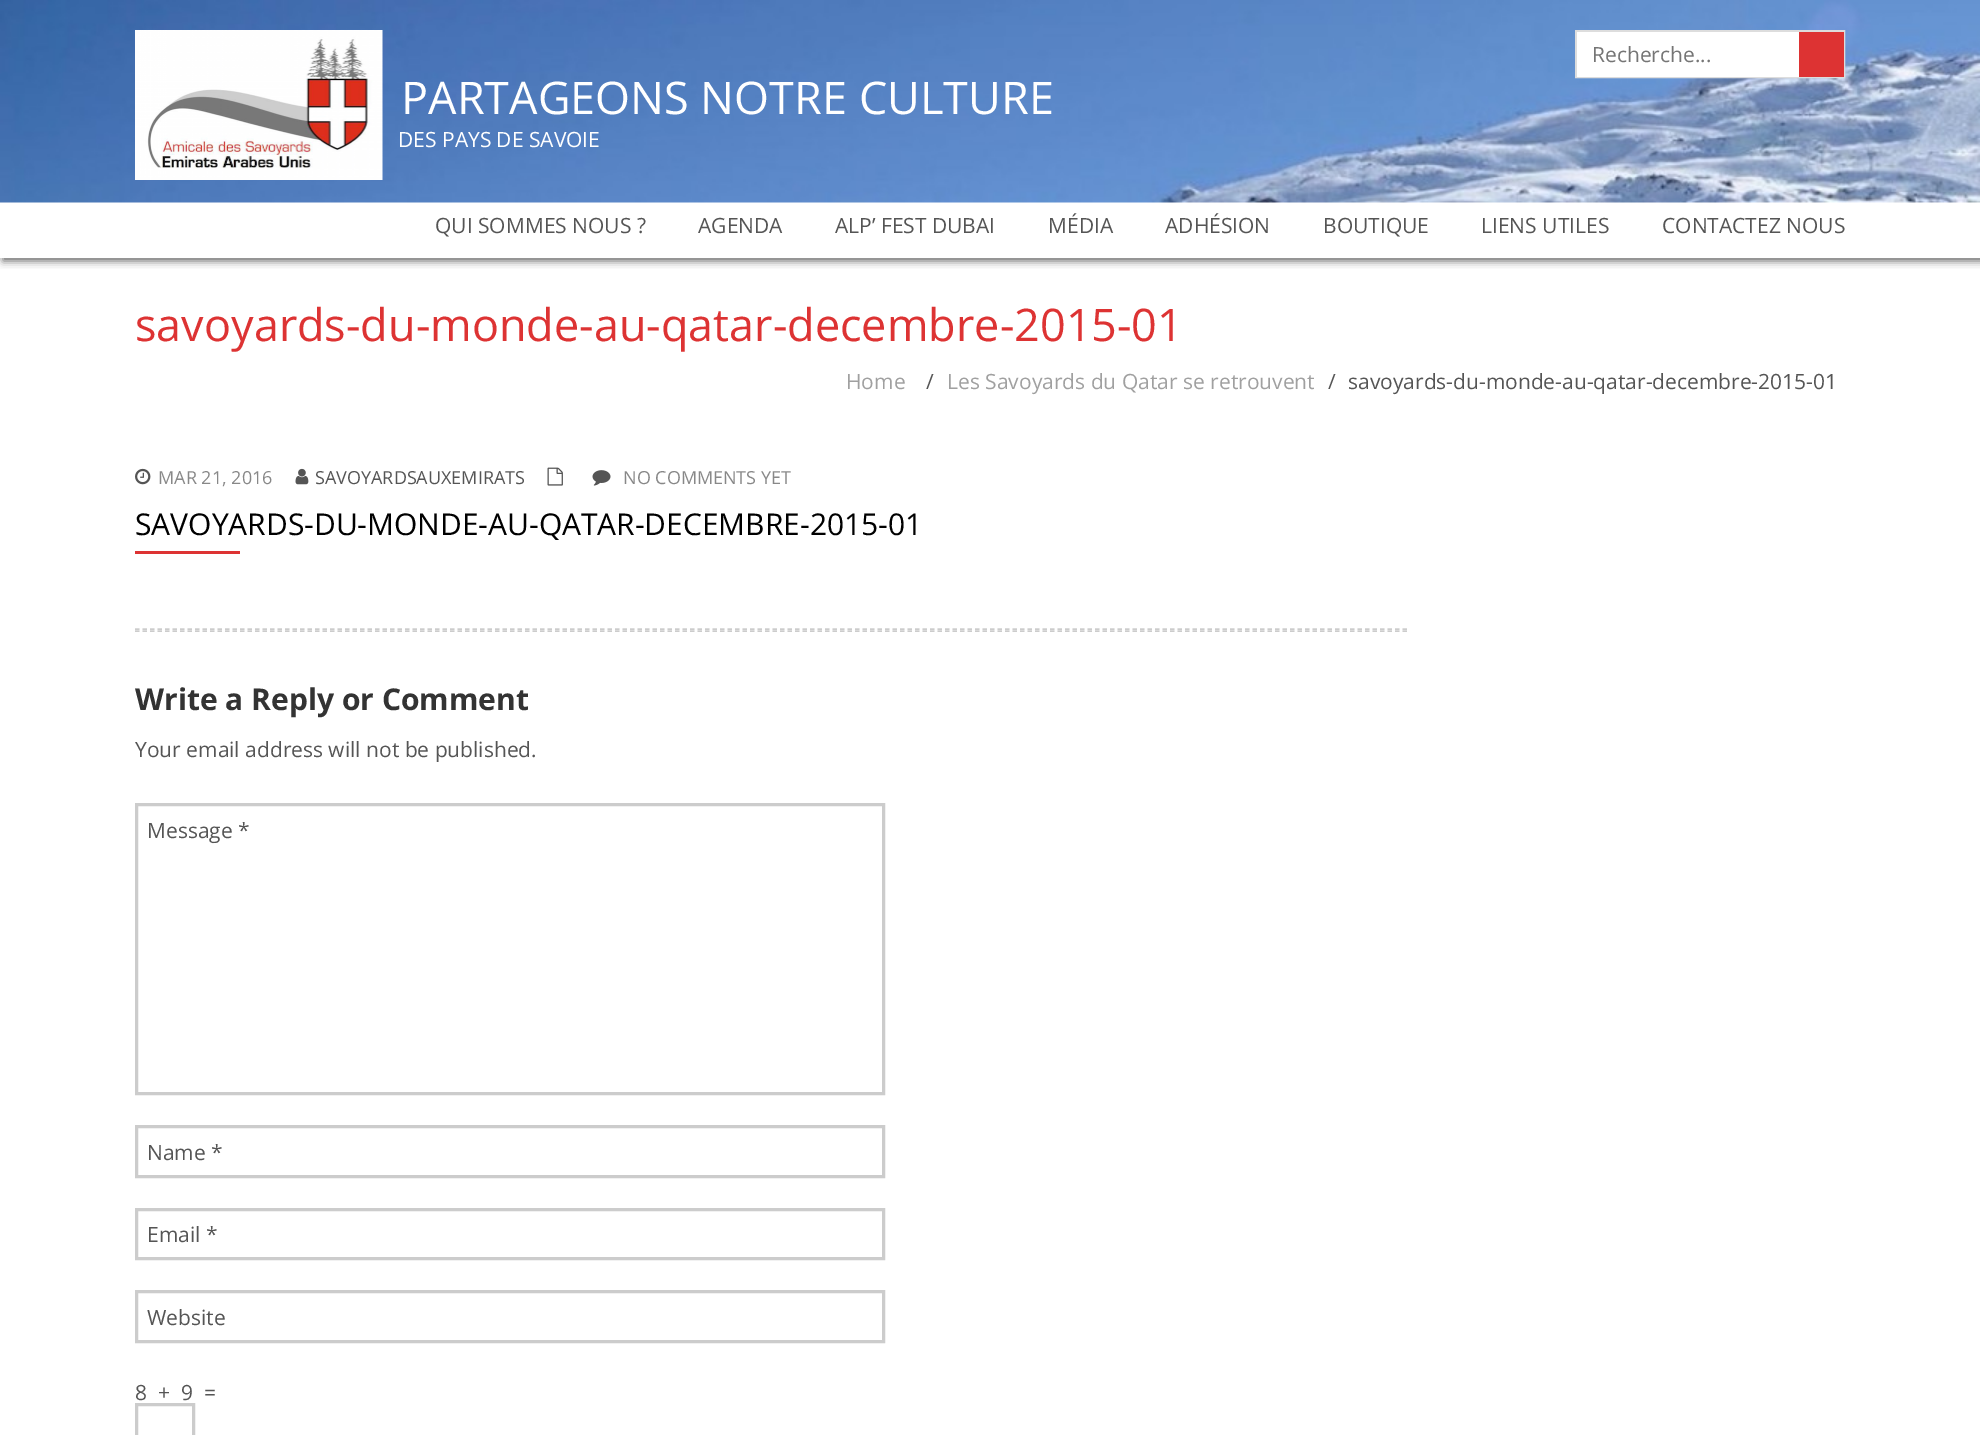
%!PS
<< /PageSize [1980 1435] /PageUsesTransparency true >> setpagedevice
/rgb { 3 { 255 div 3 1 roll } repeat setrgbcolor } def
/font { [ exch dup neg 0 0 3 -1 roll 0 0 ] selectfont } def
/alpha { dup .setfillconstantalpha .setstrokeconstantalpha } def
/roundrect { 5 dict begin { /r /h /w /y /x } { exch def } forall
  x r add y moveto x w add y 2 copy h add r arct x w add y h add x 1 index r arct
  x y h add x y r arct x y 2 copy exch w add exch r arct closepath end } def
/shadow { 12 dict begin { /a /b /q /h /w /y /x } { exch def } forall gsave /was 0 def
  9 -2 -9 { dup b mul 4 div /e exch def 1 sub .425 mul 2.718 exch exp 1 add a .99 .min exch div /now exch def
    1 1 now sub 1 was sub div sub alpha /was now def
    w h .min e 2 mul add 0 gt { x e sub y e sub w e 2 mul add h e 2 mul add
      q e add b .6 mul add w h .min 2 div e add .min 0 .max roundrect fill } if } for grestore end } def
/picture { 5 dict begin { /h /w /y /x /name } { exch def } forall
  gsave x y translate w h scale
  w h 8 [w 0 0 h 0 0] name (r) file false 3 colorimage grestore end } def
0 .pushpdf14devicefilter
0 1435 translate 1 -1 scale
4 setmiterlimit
255 255 255 rgb
0 0 1980 1435 rectfill
gsave
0 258 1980 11 rectclip
102 102 102 rgb
3 3 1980 258 0 4 1 shadow
grestore
(img/1.rgb) 0 0 1980 203 picture
221 221 221 rgb
2 setlinewidth
1576 31 268 46 rectstroke
255 255 255 rgb
1577 32 222 45 rectfill
221 51 51 rgb
1799 32 45 45 rectfill
(img/2.rgb) 135 30 248 150 picture
(img/3.rgb) 135 468 16 17 picture
(img/4.rgb) 295 468 14 17 picture
(img/5.rgb) 547 467 16 19 picture
(img/6.rgb) 592 470 19 16 picture
135 551 105 3 rectfill
204 204 204 rgb
1.5 setlinewidth
[4.5 3] 0 setdash
135 629 moveto 1407 629 lineto stroke
135 631 moveto 1407 631 lineto stroke
3 setlinewidth
[] 0 setdash
136.5 804.5 747 289 rectstroke
136.5 1126.5 747 50 rectstroke
136.5 1209.5 747 49 rectstroke
136.5 1291.5 747 50 rectstroke
136.5 1404.5 57 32 rectstroke
/OpenSans-Regular 21 font
117 117 117 rgb
1592 62 moveto (Recherche...) show
/OpenSans-Regular 45 font
255 255 255 rgb
401 114 moveto (PARTAGEONS NOTRE CULTURE) show
/OpenSans-Regular 21 font
398 147 moveto (DES PAYS DE SAVOIE) show
85 85 85 rgb
[
  [(QUI SOMMES NOUS ?) 435 233]
  [(AGENDA) 698 233]
  [(ALP’ FEST DUBAI) 835 233]
  [(MÉDIA) 1048 233]
  [(ADHÉSION) 1165 233]
  [(BOUTIQUE) 1323 233]
  [(LIENS UTILES) 1481 233]
  [(CONTACTEZ NOUS) 1662 233]
] { aload pop moveto show } forall
/OpenSans-Regular 45 font
221 51 51 rgb
135 341 moveto (savoyards-du-monde-au-qatar-decembre-2015-01) show
/OpenSans-Regular 21 font
160 160 160 rgb
846 389 moveto (Home) show
85 85 85 rgb
926 389 moveto (/) show
160 160 160 rgb
947 389 moveto (Les Savoyards du Qatar se retrouvent) show
85 85 85 rgb
1328 389 moveto (/) show
1348 389 moveto (savoyards-du-monde-au-qatar-decembre-2015-01) show
/OpenSans-Regular 18 font
136 136 136 rgb
158 484 moveto (MAR 21, 2016) show
85 85 85 rgb
315 484 moveto (SAVOYARDSAUXEMIRATS) show
136 136 136 rgb
623 484 moveto (NO COMMENTS YET) show
/OpenSans-Regular 30 font
0 0 0 rgb
135 535 moveto (SAVOYARDS-DU-MONDE-AU-QATAR-DECEMBRE-2015-01) show
/OpenSans-Bold 30 font
51 51 51 rgb
135 710 moveto (Write a Reply or Comment) show
/OpenSans-Regular 21 font
85 85 85 rgb
[
  [(Your email address will not be published.) 135 757]
  [(Message *) 147 838]
  [(Name *) 147 1160]
  [(Email *) 147 1242]
  [(Website) 147 1325]
  [(8) 135 1400]
  [(+) 158 1400]
  [(9) 181 1400]
  [(=) 204 1400]
] { aload pop moveto show } forall
.poppdf14devicefilter showpage
